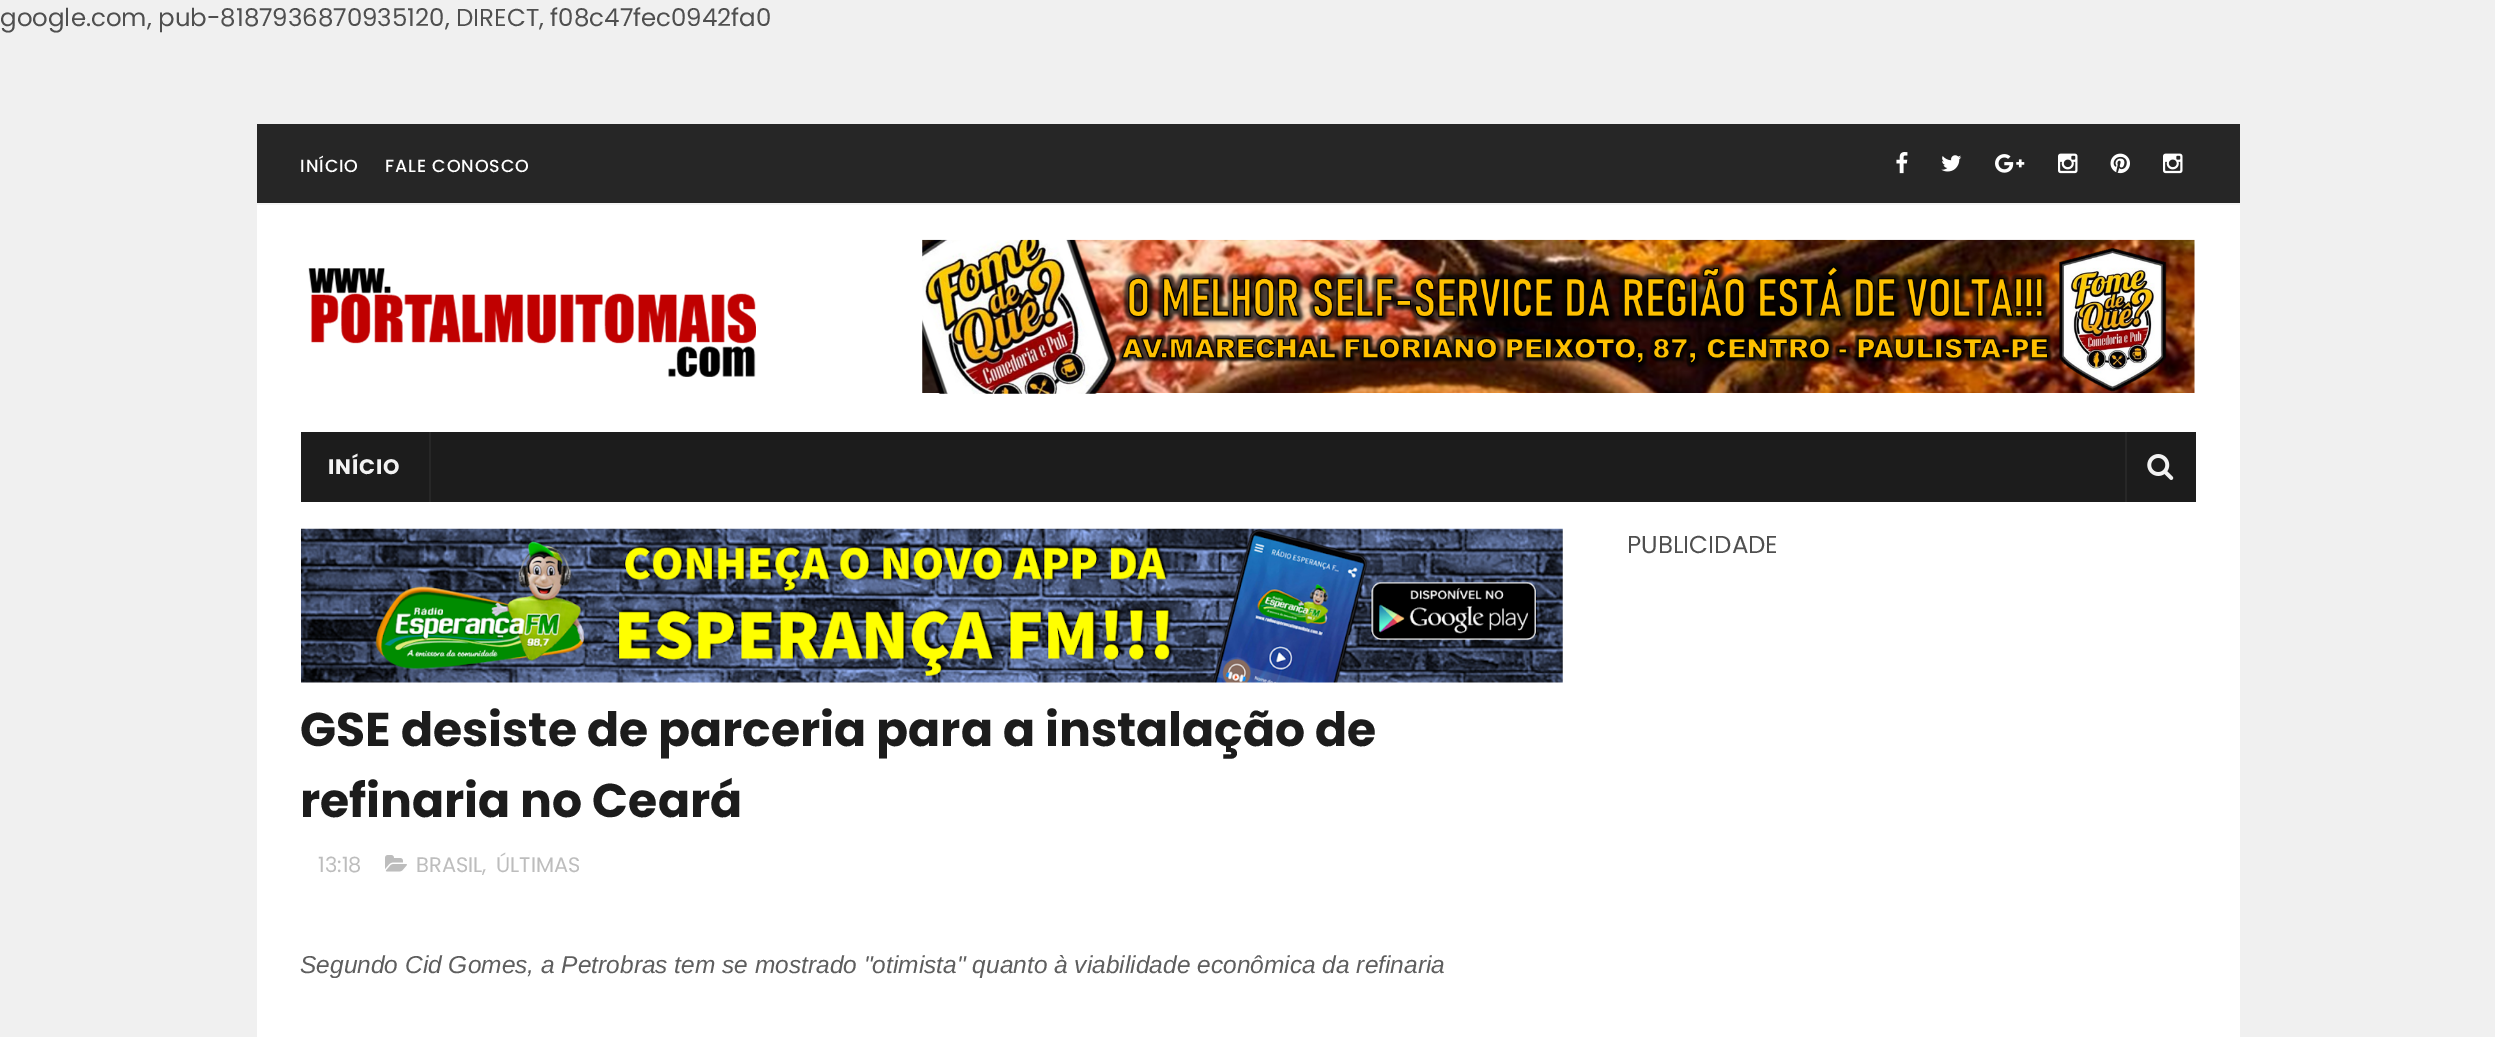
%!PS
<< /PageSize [2495 1037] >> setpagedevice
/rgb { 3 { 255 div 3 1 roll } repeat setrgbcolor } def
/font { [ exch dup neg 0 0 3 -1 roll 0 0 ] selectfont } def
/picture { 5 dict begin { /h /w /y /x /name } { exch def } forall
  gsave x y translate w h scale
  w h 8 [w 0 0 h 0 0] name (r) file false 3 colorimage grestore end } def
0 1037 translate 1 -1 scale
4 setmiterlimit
240 240 240 rgb
0 0 2495 1037 rectfill
[
  [257 205 1983 832 255 255 255]
  [257 124 1983 79 38 38 38]
  [257 203 1983 2 245 245 245]
] { aload pop rgb rectfill } forall
(img/1.rgb) 1896 152 12 22 picture
(img/2.rgb) 1941 155 21 17 picture
(img/3.rgb) 1995 154 30 19 picture
(img/4.rgb) 2058 153 20 21 picture
(img/5.rgb) 2110 153 20 21 picture
(img/4.rgb) 2163 153 20 21 picture
(img/6.rgb) 308 268 448 109 picture
(img/7.rgb) 922 239 1273 155 picture
[
  [301 432 1895 70 28 28 28]
  [429 432 2 70 39 39 39]
  [2125 432 2 70 39 39 39]
] { aload pop rgb rectfill } forall
(img/8.rgb) 2147 454 27 26 picture
(img/9.rgb) 301 528 1262 155 picture
(img/10.rgb) 385 855 22 17 picture
/Poppins-Regular 24.5 font
79 79 79 rgb
0 26 moveto (google.com, pub-8187936870935120, DIRECT, f08c47fec0942fa0) show
/Poppins-Medium 17.5 font
255 255 255 rgb
300 172 moveto 0.9 0 (INÍCIO) ashow
385 172 moveto 0.9 0 (FALE CONOSCO) ashow
/Poppins-Bold 21 font
242 242 242 rgb
328 474 moveto 0.9 0 (INÍCIO) ashow
/Poppins-Regular 24.5 font
79 79 79 rgb
1627 553 moveto (PUBLICIDADE) show
/Poppins-Bold 47.25 font
28 28 28 rgb
300 746 moveto (GSE desiste de parceria para a instalação de) show
300 817 moveto (refinaria no Ceará) show
/Poppins-Regular 21 font
189 189 189 rgb
[
  [(13:18) 318 872]
  [(BRASIL,) 416 872]
  [(ÚLTIMAS) 496 872]
] { aload pop moveto show } forall
/LiberationSans-Italic 24.5 font
94 94 94 rgb
300 973 moveto (Segundo Cid Gomes, a Petrobras tem se mostrado "otimista" quanto à viabilidade econômica da refinaria) show
showpage
